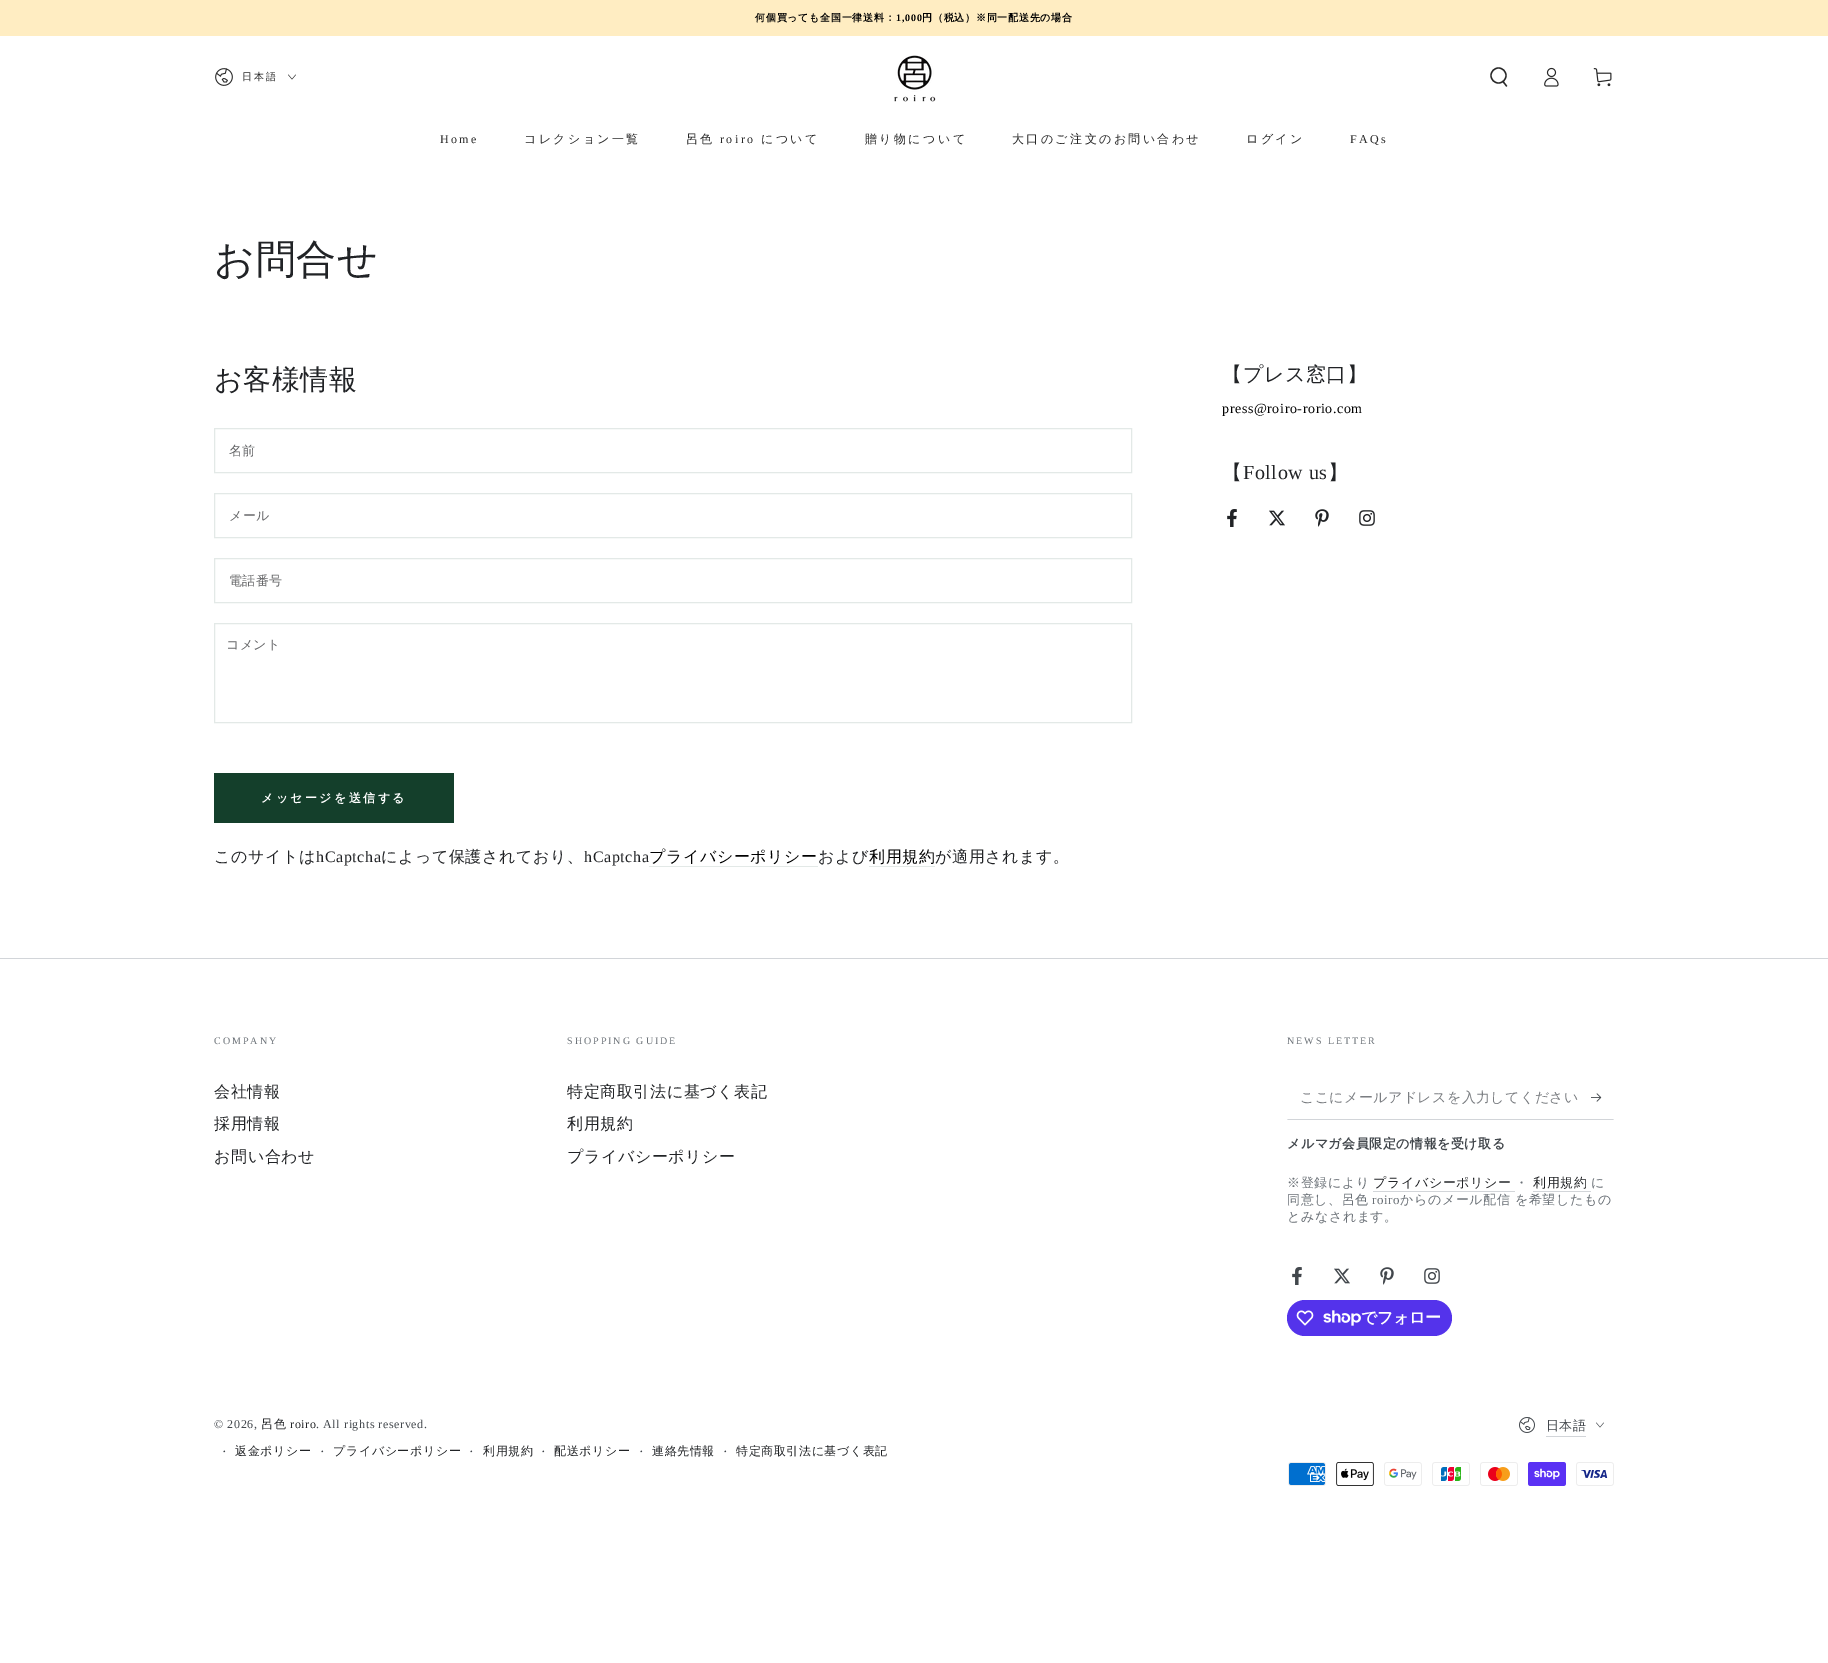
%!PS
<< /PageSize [1828 1663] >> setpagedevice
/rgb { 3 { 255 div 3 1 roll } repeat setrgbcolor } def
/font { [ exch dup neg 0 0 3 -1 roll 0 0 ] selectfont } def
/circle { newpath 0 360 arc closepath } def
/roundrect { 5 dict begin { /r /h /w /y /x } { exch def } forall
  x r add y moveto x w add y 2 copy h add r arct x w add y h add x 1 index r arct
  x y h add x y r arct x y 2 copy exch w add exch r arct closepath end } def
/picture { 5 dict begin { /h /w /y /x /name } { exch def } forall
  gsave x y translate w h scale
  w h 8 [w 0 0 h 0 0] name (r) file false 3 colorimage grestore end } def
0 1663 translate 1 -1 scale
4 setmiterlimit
255 255 255 rgb
0 0 1828 1663 rectfill
255 237 194 rgb
0 0 1828 36 rectfill
(img/1.rgb) 215 68 18 18 picture
(img/2.rgb) 288 74 8 6 picture
(img/3.rgb) 894 55 42 47 picture
40 40 40 rgb
1.3 setlinewidth
1498.5 75.5 7.5 circle stroke
1 setlinecap
1503 81.5 moveto 1506.5 86 lineto stroke
(img/4.rgb) 1544 67 15 20 picture
(img/5.rgb) 1593 68 19 19 picture
227 233 231 rgb
1 setlinewidth
0 setlinecap
214.5 428.5 917 44 rectstroke
214.5 493.5 917 44 rectstroke
214.5 558.5 917 44 rectstroke
214.5 623.5 917 99 rectstroke
[
  [214 773 240 50 20 63 43]
  [649 866 169 1 227 233 231]
  [869 866 66 1 227 233 231]
] { aload pop rgb rectfill } forall
(img/6.rgb) 1227 509 10 18 picture
(img/7.rgb) 1269 510 16 16 picture
(img/8.rgb) 1315 509 14 18 picture
(img/9.rgb) 1359 510 16 16 picture
210 213 217 rgb
0 958 1828 1 rectfill
1614 1120 moveto 1287 1120 lineto 1288 1119 lineto 1613 1119 lineto closepath fill
(img/10.rgb) 1591 1093 11 9 picture
1373 1191 142 1 rectfill
1533 1191 58 1 rectfill
(img/11.rgb) 1292 1267 10 18 picture
(img/12.rgb) 1334 1268 16 16 picture
(img/13.rgb) 1380 1267 14 18 picture
(img/14.rgb) 1424 1268 16 16 picture
84 51 235 rgb
1287 1300 165 36 18 roundrect fill
(img/15.rgb) 1296 1310 18 16 picture
(img/16.rgb) 1323 1310 38 16 picture
(img/17.rgb) 1519 1417 16 16 picture
210 213 217 rgb
1546 1436 40 1 rectfill
(img/18.rgb) 1596 1422 8 6 picture
(img/19.rgb) 1288 1462 38 24 picture
(img/20.rgb) 1336 1462 38 24 picture
(img/21.rgb) 1384 1462 38 24 picture
(img/22.rgb) 1432 1462 38 24 picture
(img/23.rgb) 1480 1462 38 24 picture
(img/24.rgb) 1528 1462 38 24 picture
(img/25.rgb) 1576 1462 38 24 picture
/WenQuanYiZenHei-Bold 10 font
0 0 0 rgb
755 21 moveto 0.75 0 (何個買っても全国一律送料：) ashow
/LiberationSerif-Bold 10 font
896 21 moveto 0.75 0 (1,000) ashow
/WenQuanYiZenHei-Bold 10 font
922 21 moveto 0.75 0 (円（税込）※同一配送先の場合) ashow
/WenQuanYiZenHei-Medium 10 font
40 40 40 rgb
242 80 moveto 2 0 (日本語) ashow
/LiberationSerif-Regular 12 font
440 143 moveto 2.4 0 (Home) ashow
/WenQuanYiZenHei-Medium 12 font
524 143 moveto 2.4 0 (コレクション一覧) ashow
686 143 moveto 2.4 0 (呂色) ashow
/LiberationSerif-Regular 12 font
720 143 moveto 2.4 0 (roiro) ashow
/WenQuanYiZenHei-Medium 12 font
761 143 moveto 2.4 0 (について) ashow
865 143 moveto 2.4 0 (贈り物について) ashow
1012 143 moveto 2.4 0 (大口のご注文のお問い合わせ) ashow
1246 143 moveto 2.4 0 (ログイン) ashow
/LiberationSerif-Regular 12 font
1350 143 moveto 2.4 0 (FAQs) ashow
/WenQuanYiZenHei-Medium 40 font
33 35 38 rgb
214 273 moveto 0.6 0 (お問合せ) ashow
/WenQuanYiZenHei-Medium 28 font
214 389 moveto 0.6 0 (お客様情報) ashow
/WenQuanYiZenHei-Medium 13 font
100 101 103 rgb
229 455 moveto 0.4 0 (名前) ashow
229 520 moveto 0.4 0 (メール) ashow
229 585 moveto 0.4 0 (電話番号) ashow
226 649 moveto 0.4 0 (コメント) ashow
/WenQuanYiZenHei-Bold 12 font
255 255 255 rgb
261 802 moveto 2.4 0 (メッセージを送信する) ashow
/WenQuanYiZenHei-Medium 16 font
33 35 38 rgb
214 862 moveto 0.6 0 (このサイトは) ashow
/LiberationSerif-Regular 16 font
316 862 moveto 0.6 0 (hCaptcha) ashow
/WenQuanYiZenHei-Medium 16 font
381 862 moveto 0.6 0 (によって保護されており、) ashow
/LiberationSerif-Regular 16 font
584 862 moveto 0.6 0 (hCaptcha) ashow
/WenQuanYiZenHei-Medium 16 font
0 0 0 rgb
649 862 moveto 0.6 0 (プライバシーポリシー) ashow
33 35 38 rgb
818 862 moveto 0.6 0 (および) ashow
0 0 0 rgb
869 862 moveto 0.6 0 (利用規約) ashow
33 35 38 rgb
935 862 moveto 0.6 0 (が適用されます。) ashow
/WenQuanYiZenHei-Medium 20 font
1222 381 moveto 0.6 0 (【プレス窓口】) ashow
/LiberationSerif-Regular 14 font
0 0 0 rgb
1222 413 moveto 0.6 0 (press@roiro-rorio.com) ashow
/WenQuanYiZenHei-Medium 20 font
33 35 38 rgb
1222 479 moveto 0.6 0 (【) ashow
/LiberationSerif-Regular 20 font
1243 479 moveto 0.6 0 (Follow us) ashow
/WenQuanYiZenHei-Medium 20 font
1328 479 moveto 0.6 0 (】) ashow
/LiberationSerif-Regular 10 font
107 113 119 rgb
214 1044 moveto 2 0 (COMPANY) ashow
/WenQuanYiZenHei-Medium 16 font
33 35 38 rgb
214 1097 moveto 0.6 0 (会社情報) ashow
214 1129 moveto 0.6 0 (採用情報) ashow
214 1162 moveto 0.6 0 (お問い合わせ) ashow
/LiberationSerif-Regular 10 font
107 113 119 rgb
567 1044 moveto 2 0 (SHOPPING GUIDE) ashow
/WenQuanYiZenHei-Medium 16 font
33 35 38 rgb
567 1097 moveto 0.6 0 (特定商取引法に基づく表記) ashow
567 1129 moveto 0.6 0 (利用規約) ashow
567 1162 moveto 0.6 0 (プライバシーポリシー) ashow
/LiberationSerif-Regular 10 font
107 113 119 rgb
1287 1044 moveto 2 0 (NEWS LETTER) ashow
/WenQuanYiZenHei-Medium 14 font
123 126 130 rgb
1300 1102 moveto 0.4 0 (ここにメールアドレスを入力してください) ashow
/WenQuanYiZenHei-Bold 13 font
66 71 76 rgb
1287 1148 moveto 0.5 0 (メルマガ会員限定の情報を受け取る) ashow
/WenQuanYiZenHei-Medium 13 font
107 113 119 rgb
1287 1187 moveto 0.6 0 (※登録により) ashow
33 35 38 rgb
1373 1187 moveto 0.6 0 (プライバシーポリシー) ashow
107 113 119 rgb
1515 1187 moveto 0.6 0 (・) ashow
33 35 38 rgb
1533 1187 moveto 0.6 0 (利用規約) ashow
107 113 119 rgb
1591 1187 moveto 0.6 0 (に) ashow
1287 1204 moveto 0.6 0 (同意し、呂色) ashow
/LiberationSerif-Regular 13 font
1372 1204 moveto 0.6 0 (roiro) ashow
/WenQuanYiZenHei-Medium 13 font
1400 1204 moveto 0.6 0 (からのメール配信 を希望したもの) ashow
1287 1221 moveto 0.6 0 (とみなされます。) ashow
/WenQuanYiZenHei-Bold 16 font
255 255 255 rgb
1361 1323 moveto -0.5 0 (でフォロー) ashow
/LiberationSerif-Regular 12 font
66 71 76 rgb
214 1428 moveto 0.6 0 (© 2026,) ashow
/WenQuanYiZenHei-Medium 12 font
33 35 38 rgb
261 1428 moveto 0.6 0 (呂色) ashow
/LiberationSerif-Regular 12 font
290 1428 moveto 0.6 0 (roiro) ashow
66 71 76 rgb
316 1428 moveto 0.6 0 (. All rights reserved.) ashow
/LiberationSerif-Regular 14 font
222 1456 moveto 0.6 0 (·) ashow
/WenQuanYiZenHei-Medium 12 font
33 35 38 rgb
235 1455 moveto 0.6 0 (返金ポリシー) ashow
/LiberationSerif-Regular 14 font
66 71 76 rgb
320 1456 moveto 0.6 0 (·) ashow
/WenQuanYiZenHei-Medium 12 font
33 35 38 rgb
333 1455 moveto 0.6 0 (プライバシーポリシー) ashow
/LiberationSerif-Regular 14 font
66 71 76 rgb
469 1456 moveto 0.6 0 (·) ashow
/WenQuanYiZenHei-Medium 12 font
33 35 38 rgb
483 1455 moveto 0.6 0 (利用規約) ashow
/LiberationSerif-Regular 14 font
66 71 76 rgb
541 1456 moveto 0.6 0 (·) ashow
/WenQuanYiZenHei-Medium 12 font
33 35 38 rgb
554 1455 moveto 0.6 0 (配送ポリシー) ashow
/LiberationSerif-Regular 14 font
66 71 76 rgb
639 1456 moveto 0.6 0 (·) ashow
/WenQuanYiZenHei-Medium 12 font
33 35 38 rgb
652 1455 moveto 0.6 0 (連絡先情報) ashow
/LiberationSerif-Regular 14 font
66 71 76 rgb
723 1456 moveto 0.6 0 (·) ashow
/WenQuanYiZenHei-Medium 12 font
33 35 38 rgb
736 1455 moveto 0.6 0 (特定商取引法に基づく表記) ashow
/WenQuanYiZenHei-Medium 13 font
66 71 76 rgb
1546 1430 moveto 0.4 0 (日本語) ashow
showpage
